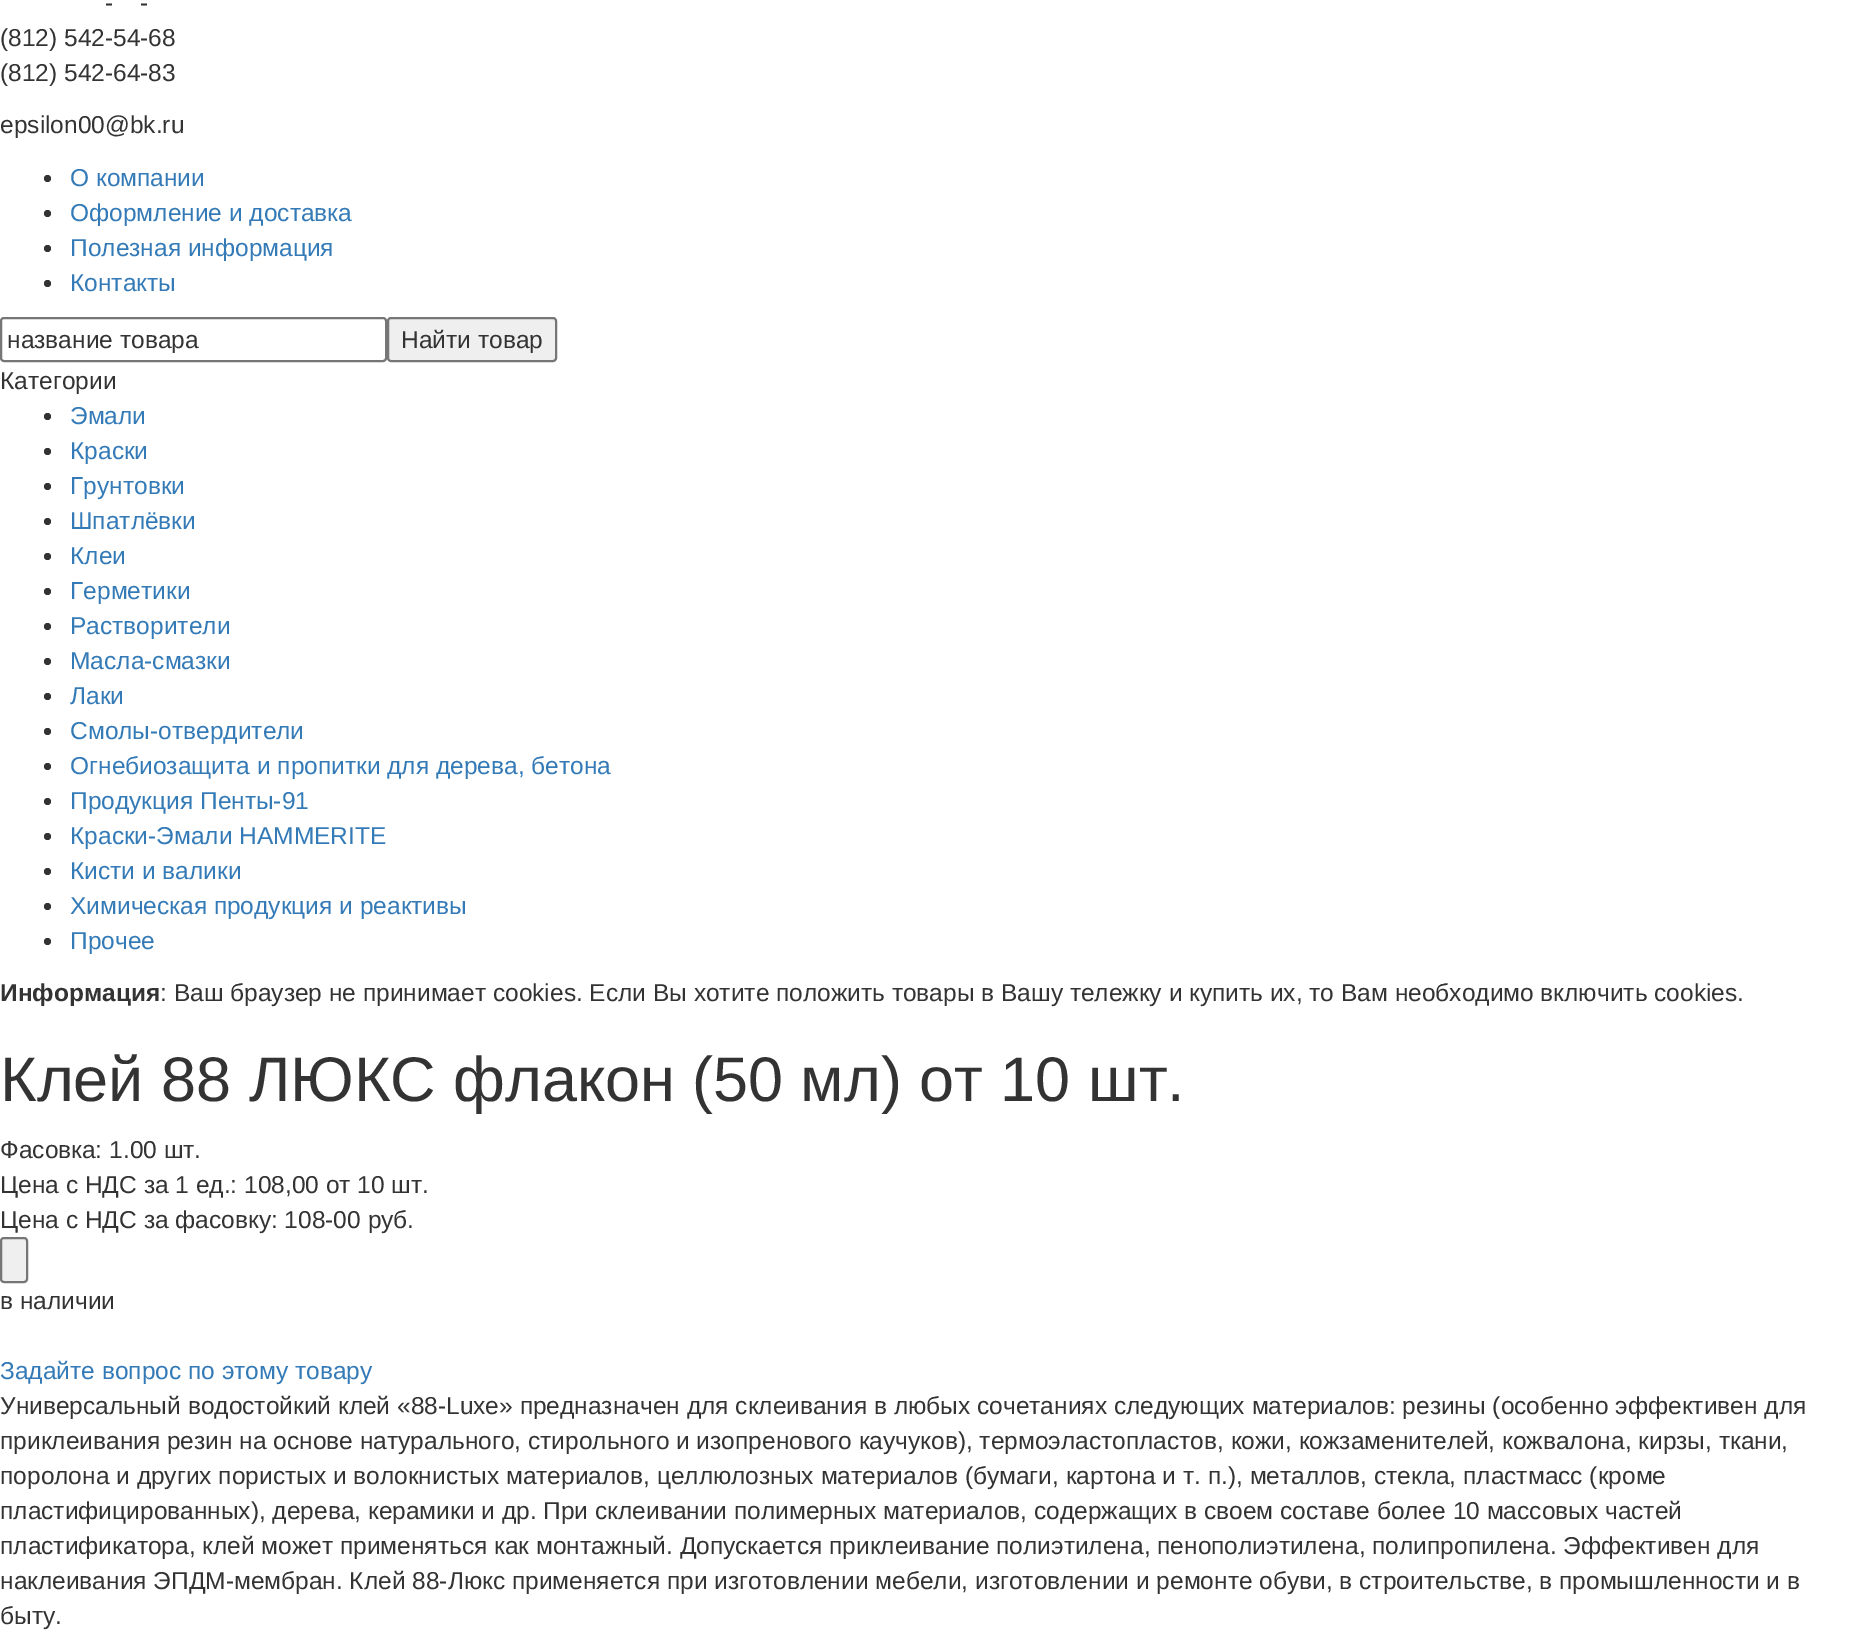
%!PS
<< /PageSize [1853 1651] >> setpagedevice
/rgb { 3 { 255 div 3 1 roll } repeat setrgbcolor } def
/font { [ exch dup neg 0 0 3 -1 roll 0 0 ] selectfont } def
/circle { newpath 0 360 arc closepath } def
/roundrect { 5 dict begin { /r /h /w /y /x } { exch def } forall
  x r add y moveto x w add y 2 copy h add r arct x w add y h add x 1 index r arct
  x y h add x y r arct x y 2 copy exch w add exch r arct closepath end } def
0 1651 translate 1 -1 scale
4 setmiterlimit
255 255 255 rgb
0 0 1853 1651 rectfill
51 51 51 rgb
47.5 178.5 3.5 circle fill
47.5 213.5 3.5 circle fill
47.5 248.5 3.5 circle fill
47.5 283.5 3.5 circle fill
118 118 118 rgb
2 setlinewidth
1 318 385 43 3 roundrect stroke
239 239 239 rgb
388 318 168 43 3 roundrect gsave fill grestore
118 118 118 rgb
stroke
51 51 51 rgb
47.5 416.5 3.5 circle fill
47.5 451.5 3.5 circle fill
47.5 486.5 3.5 circle fill
47.5 521.5 3.5 circle fill
47.5 556.5 3.5 circle fill
47.5 591.5 3.5 circle fill
47.5 626.5 3.5 circle fill
47.5 661.5 3.5 circle fill
47.5 696.5 3.5 circle fill
47.5 731.5 3.5 circle fill
47.5 766.5 3.5 circle fill
47.5 801.5 3.5 circle fill
47.5 836.5 3.5 circle fill
47.5 871.5 3.5 circle fill
47.5 906.5 3.5 circle fill
47.5 941.5 3.5 circle fill
239 239 239 rgb
1 1238 26 44 3 roundrect gsave fill grestore
118 118 118 rgb
stroke
/LiberationSans-Regular 24.5 font
51 51 51 rgb
[
  [(-) 105 11]
  [(-) 140 11]
  [(\(812\) 542-54-68) 0 46]
  [(\(812\) 542-64-83) 0 81]
  [(epsilon00@bk.ru) 0 133]
] { aload pop moveto show } forall
51 122 183 rgb
[
  [(О компании) 70 186]
  [(Оформление и доставка) 70 221]
  [(Полезная информация) 70 256]
  [(Контакты) 70 291]
] { aload pop moveto show } forall
51 51 51 rgb
[
  [(название товара) 7 348]
  [(Найти товар) 401 348]
  [(Категории) 0 389]
] { aload pop moveto show } forall
51 122 183 rgb
[
  [(Эмали) 70 424]
  [(Краски) 70 459]
  [(Грунтовки) 70 494]
  [(Шпатлёвки) 70 529]
  [(Клеи) 70 564]
  [(Герметики) 70 599]
  [(Растворители) 70 634]
  [(Масла-смазки) 70 669]
  [(Лаки) 70 704]
  [(Смолы-отвердители) 70 739]
  [(Огнебиозащита и пропитки для дерева, бетона) 70 774]
  [(Продукция Пенты-91) 70 809]
  [(Краски-Эмали HAMMERITE) 70 844]
  [(Кисти и валики) 70 879]
  [(Химическая продукция и реактивы) 70 914]
  [(Прочее) 70 949]
] { aload pop moveto show } forall
/LiberationSans-Bold 24.5 font
51 51 51 rgb
0 1001 moveto (Информация) show
/LiberationSans-Regular 24.5 font
160 1001 moveto (: Ваш браузер не принимает cookies. Если Вы хотите положить товары в Вашу тележку и купить их, то Вам необходимо включить cookies.) show
/LiberationSans-Regular 63 font
0 1101 moveto (Клей 88 ЛЮКС флакон \(50 мл\) от 10 шт.) show
/LiberationSans-Regular 24.5 font
[
  [(Фасовка: 1.00 шт.) 0 1158]
  [(Цена с НДС за 1 ед.: 108,00 от 10 шт.) 0 1193]
  [(Цена с НДС за фасовку: 108-00 руб.) 0 1228]
  [(в наличии) 0 1309]
] { aload pop moveto show } forall
51 122 183 rgb
0 1379 moveto (Задайте вопрос по этому товару) show
51 51 51 rgb
[
  [(Универсальный водостойкий клей «88-Luxe» предназначен для склеивания в любых сочетаниях следующих материалов: резины \(особенно эффективен для) 0 1414]
  [(приклеивания резин на основе натурального, стирольного и изопренового каучуков\), термоэластопластов, кожи, кожзаменителей, кожвалона, кирзы, ткани,) 0 1449]
  [(поролона и других пористых и волокнистых материалов, целлюлозных материалов \(бумаги, картона и т. п.\), металлов, стекла, пластмасс \(кроме) 0 1484]
  [(пластифицированных\), дерева, керамики и др. При склеивании полимерных материалов, содержащих в своем составе более 10 массовых частей) 0 1519]
  [(пластификатора, клей может применяться как монтажный. Допускается приклеивание полиэтилена, пенополиэтилена, полипропилена. Эффективен для) 0 1554]
  [(наклеивания ЭПДМ-мембран. Клей 88-Люкс применяется при изготовлении мебели, изготовлении и ремонте обуви, в строительстве, в промышленности и в) 0 1589]
  [(быту.) 0 1624]
] { aload pop moveto show } forall
showpage
